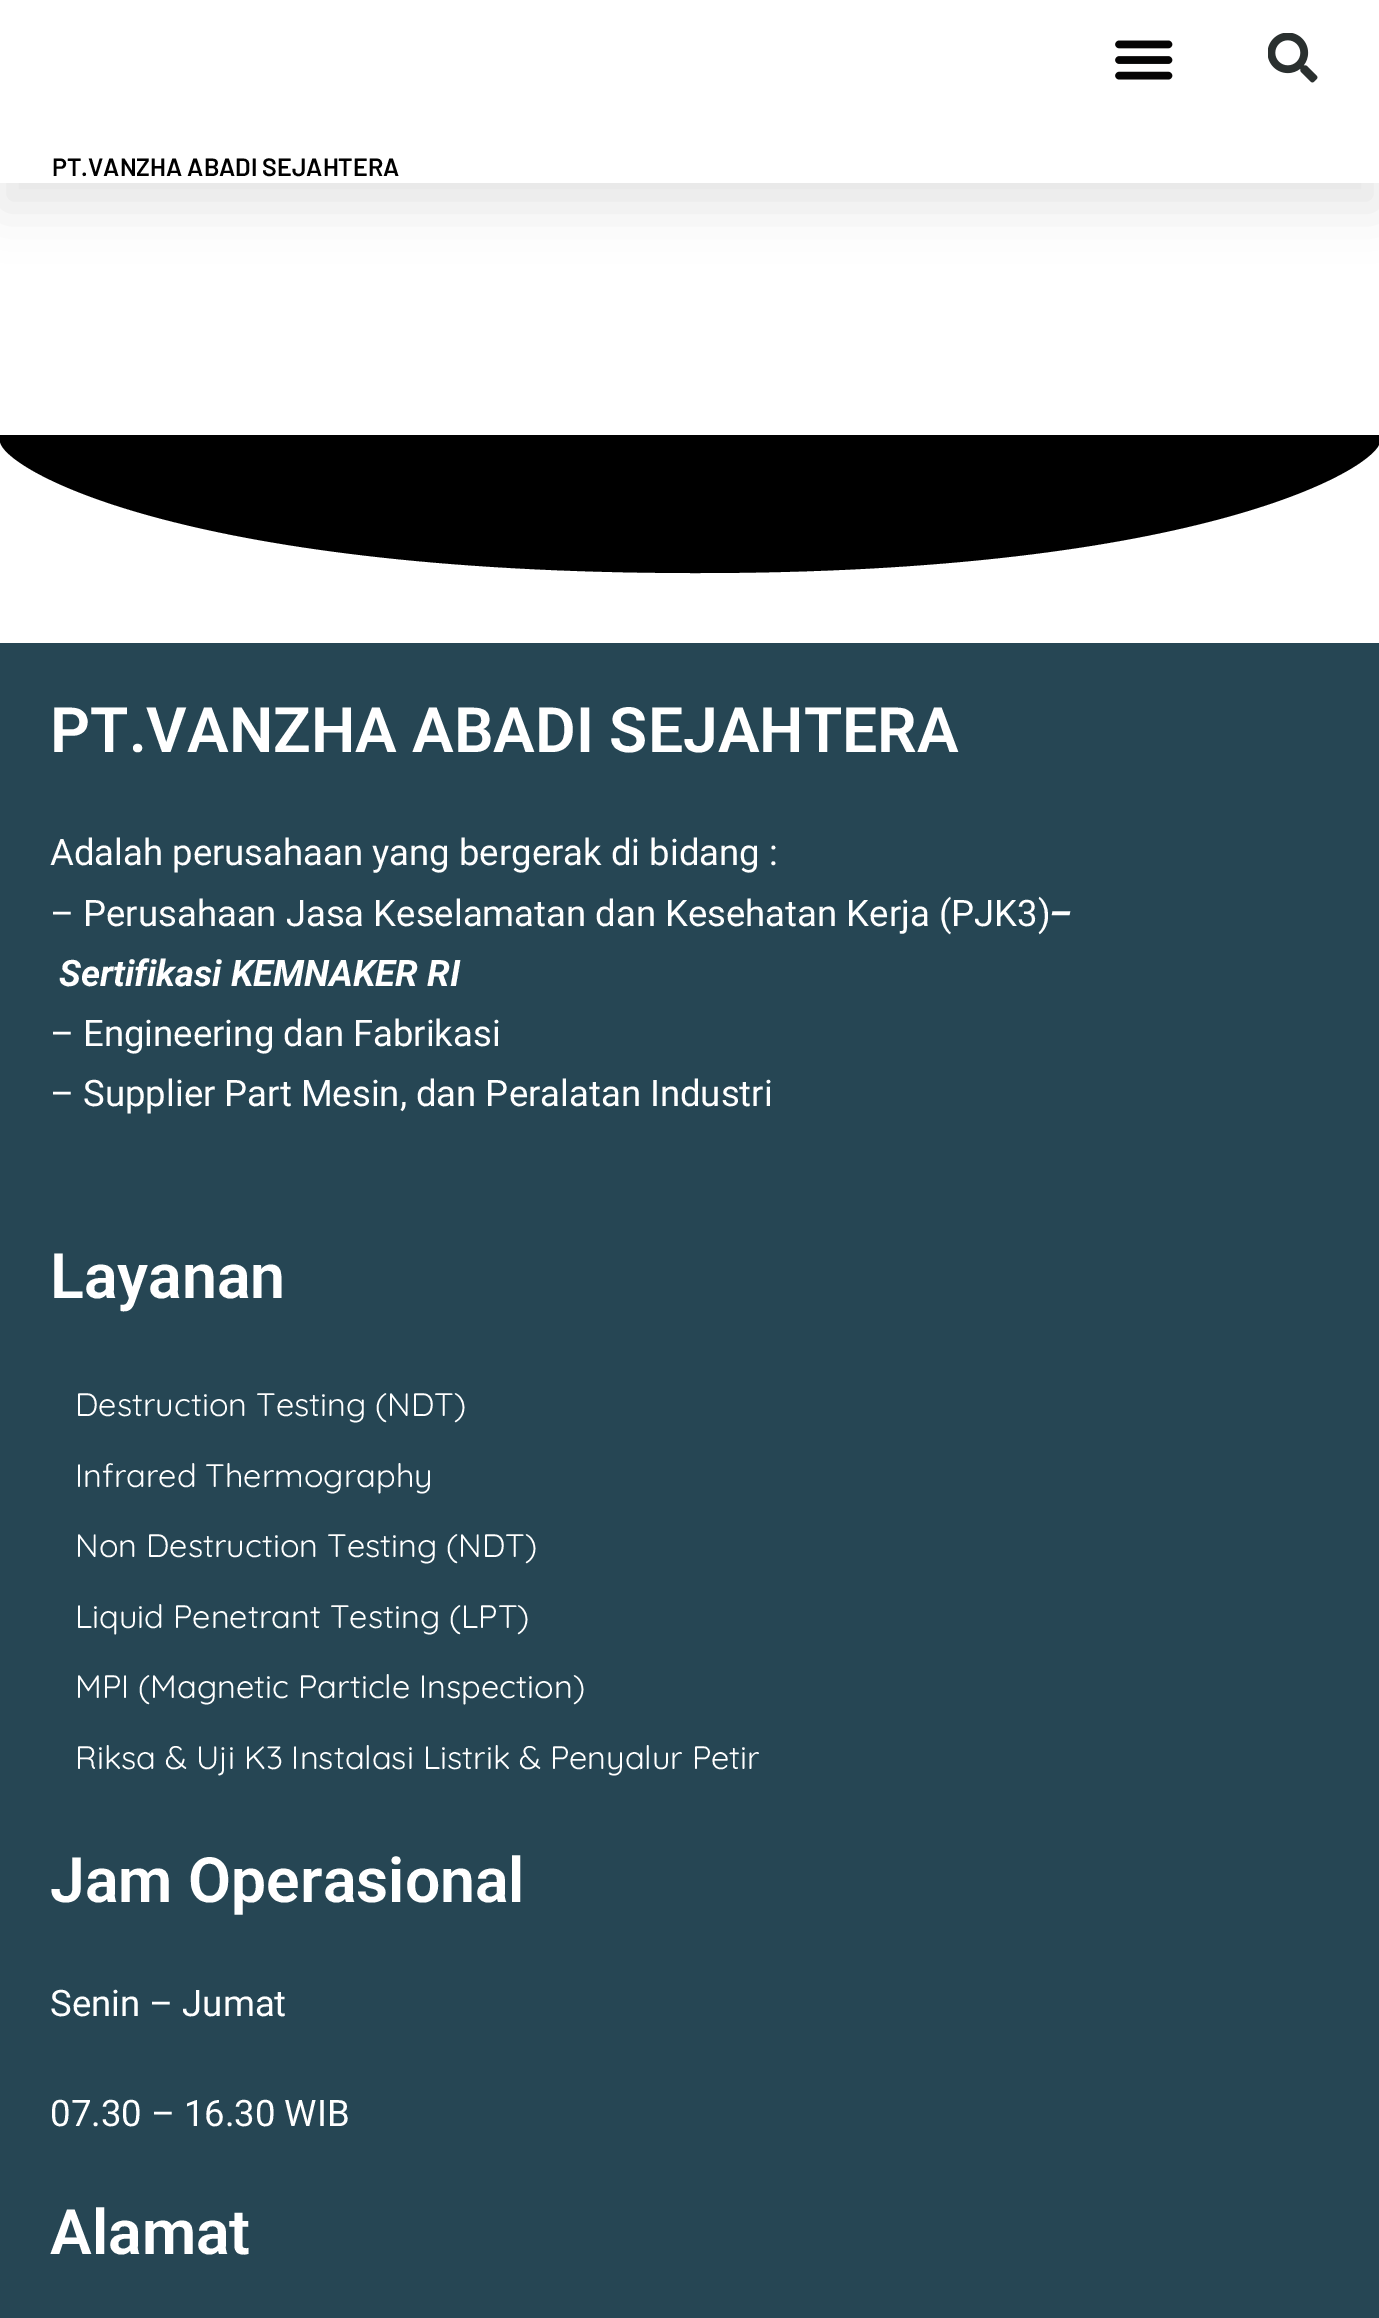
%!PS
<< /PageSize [1379 2318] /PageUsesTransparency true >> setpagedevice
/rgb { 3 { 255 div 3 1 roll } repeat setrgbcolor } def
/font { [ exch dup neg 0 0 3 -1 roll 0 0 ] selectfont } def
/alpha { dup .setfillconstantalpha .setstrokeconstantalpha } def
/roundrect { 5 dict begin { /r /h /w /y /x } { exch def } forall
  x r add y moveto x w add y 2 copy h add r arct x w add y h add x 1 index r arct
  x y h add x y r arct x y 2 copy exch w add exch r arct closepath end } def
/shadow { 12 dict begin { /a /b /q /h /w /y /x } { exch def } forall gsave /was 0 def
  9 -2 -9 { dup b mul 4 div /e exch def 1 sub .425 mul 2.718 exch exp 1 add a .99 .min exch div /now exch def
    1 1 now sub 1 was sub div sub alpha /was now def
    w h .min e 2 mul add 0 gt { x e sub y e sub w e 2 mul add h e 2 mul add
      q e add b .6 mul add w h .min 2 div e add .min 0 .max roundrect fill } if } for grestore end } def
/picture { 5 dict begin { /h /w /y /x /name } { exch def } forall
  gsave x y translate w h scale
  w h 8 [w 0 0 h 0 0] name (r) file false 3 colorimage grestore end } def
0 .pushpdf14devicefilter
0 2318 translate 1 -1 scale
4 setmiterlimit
255 255 255 rgb
0 0 1379 2318 rectfill
0 0 0 rgb
0 -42 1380 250 0 25 0.1 shadow
255 255 255 rgb
0 0 1379 183 rectfill
(img/1.rgb) 1115 40 58 40 picture
(img/2.rgb) 1268 33 50 50 picture
0 0 0 rgb
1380 441 moveto 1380 435 lineto 0 435 lineto 0 441 lineto 1 467 175 572 690 573 curveto 1205 574 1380 466 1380 441 curveto closepath fill
38 70 84 rgb
0 643 1379 1675 rectfill
/Barlow-SemiBold 25 font
0 0 0 rgb
52 176 moveto (PT.VANZHA ABADI SEJAHTERA) show
/Roboto-SemiBold 62.5 font
255 255 255 rgb
50 752 moveto (PT.VANZHA ABADI SEJAHTERA) show
/Roboto-Regular 36.5 font
50 865 moveto (Adalah perusahaan yang bergerak di bidang :) show
50 926 moveto (– Perusahaan Jasa Keselamatan dan Kesehatan Kerja \(PJK3\)) show
/Roboto-BoldItalic 36.5 font
1049 926 moveto (–) show
59 986 moveto (Sertifikasi KEMNAKER RI) show
/Roboto-Regular 36.5 font
50 1046 moveto (– Engineering dan Fabrikasi) show
50 1106 moveto (– Supplier Part Mesin, dan Peralatan Industri) show
/Roboto-SemiBold 62.5 font
50 1298 moveto (Layanan) show
/Quicksand-Regular 32.5 font
[
  [(Destruction Testing \(NDT\)) 75 1416]
  [(Infrared Thermography) 75 1487]
  [(Non Destruction Testing \(NDT\)) 75 1557]
  [(Liquid Penetrant Testing \(LPT\)) 75 1628]
  [(MPI \(Magnetic Particle Inspection\)) 75 1698]
  [(Riksa & Uji K3 Instalasi Listrik & Penyalur Petir) 75 1769]
] { aload pop moveto show } forall
/Roboto-SemiBold 62.5 font
50 1902 moveto (Jam Operasional) show
/Roboto-Regular 36.5 font
50 2016 moveto (Senin – Jumat) show
50 2126 moveto (07.30 – 16.30 WIB) show
/Roboto-SemiBold 62.5 font
50 2254 moveto (Alamat) show
.poppdf14devicefilter showpage
